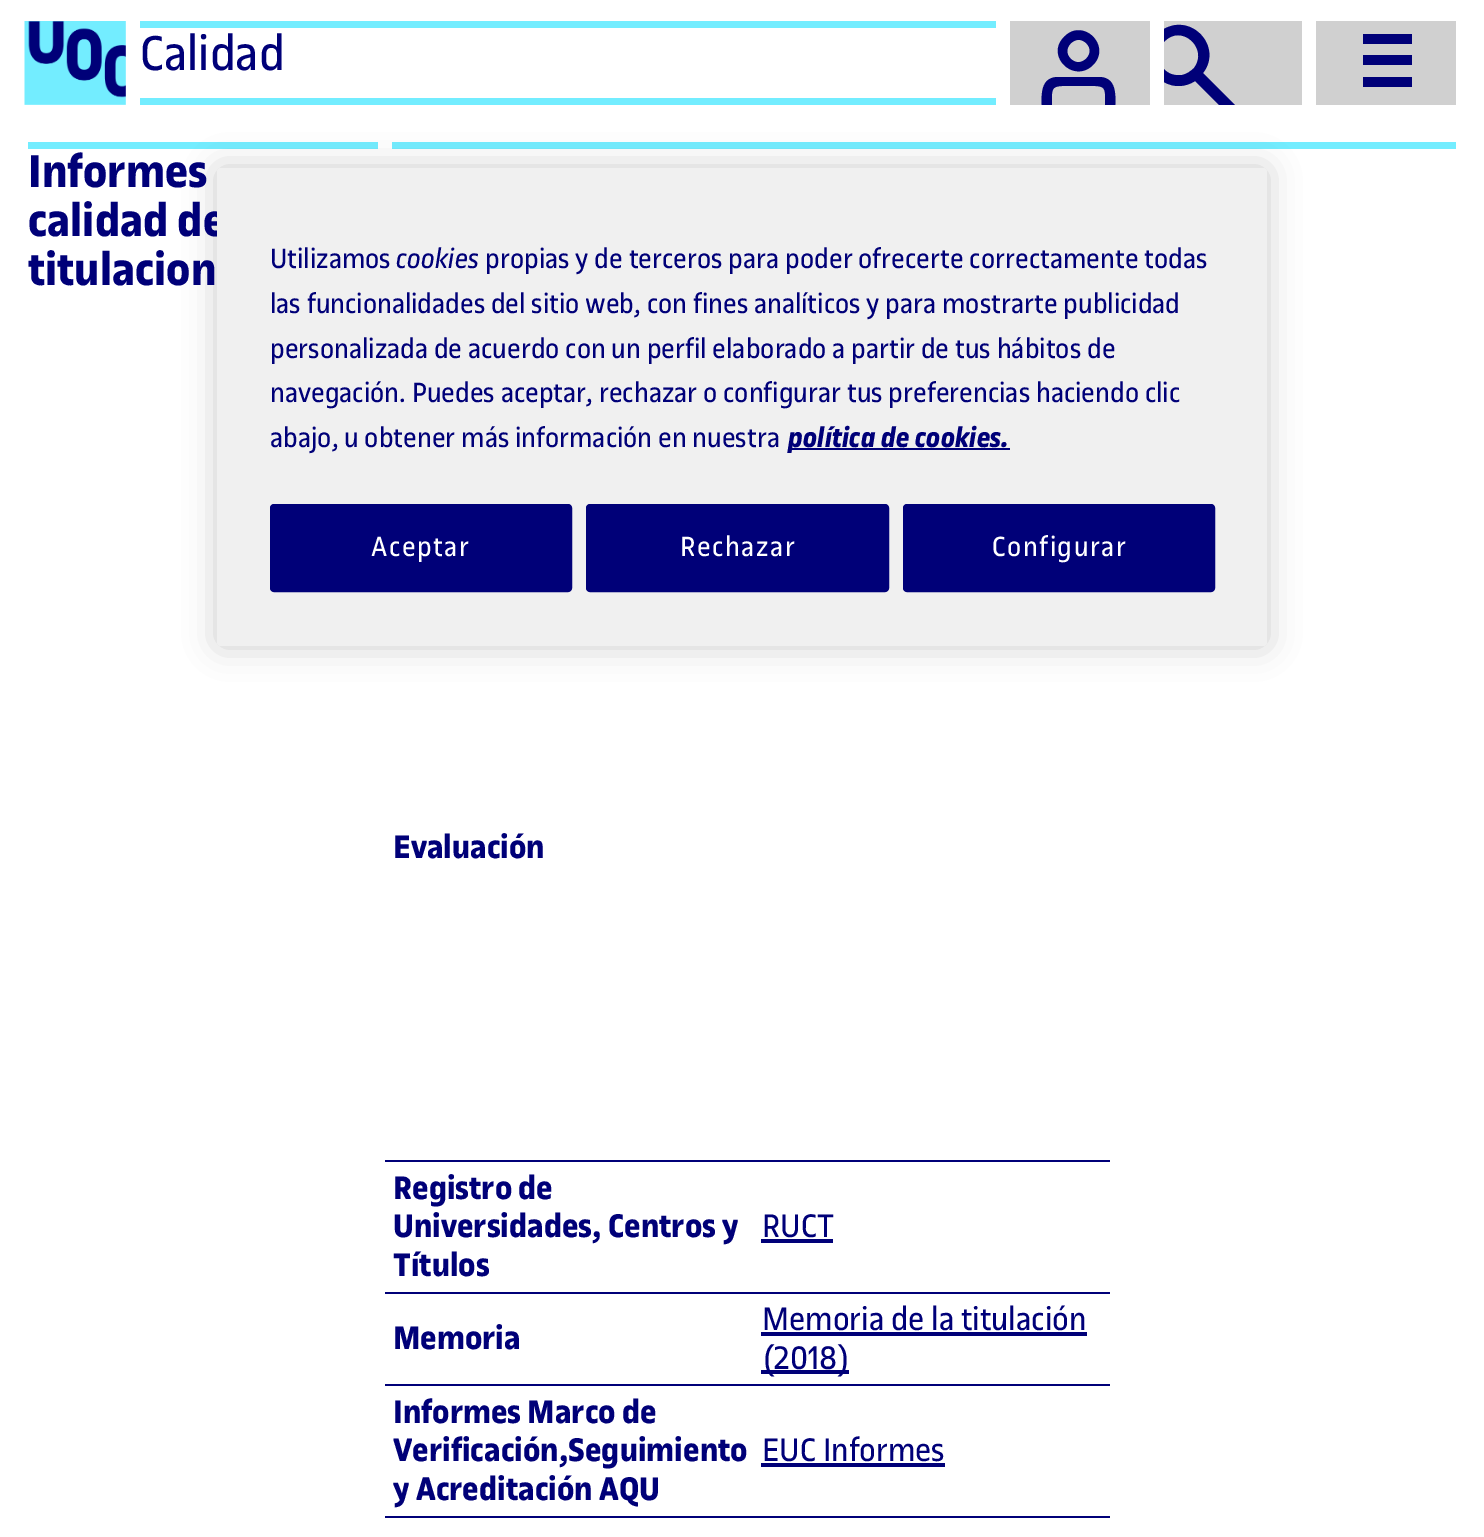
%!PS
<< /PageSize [1484 1537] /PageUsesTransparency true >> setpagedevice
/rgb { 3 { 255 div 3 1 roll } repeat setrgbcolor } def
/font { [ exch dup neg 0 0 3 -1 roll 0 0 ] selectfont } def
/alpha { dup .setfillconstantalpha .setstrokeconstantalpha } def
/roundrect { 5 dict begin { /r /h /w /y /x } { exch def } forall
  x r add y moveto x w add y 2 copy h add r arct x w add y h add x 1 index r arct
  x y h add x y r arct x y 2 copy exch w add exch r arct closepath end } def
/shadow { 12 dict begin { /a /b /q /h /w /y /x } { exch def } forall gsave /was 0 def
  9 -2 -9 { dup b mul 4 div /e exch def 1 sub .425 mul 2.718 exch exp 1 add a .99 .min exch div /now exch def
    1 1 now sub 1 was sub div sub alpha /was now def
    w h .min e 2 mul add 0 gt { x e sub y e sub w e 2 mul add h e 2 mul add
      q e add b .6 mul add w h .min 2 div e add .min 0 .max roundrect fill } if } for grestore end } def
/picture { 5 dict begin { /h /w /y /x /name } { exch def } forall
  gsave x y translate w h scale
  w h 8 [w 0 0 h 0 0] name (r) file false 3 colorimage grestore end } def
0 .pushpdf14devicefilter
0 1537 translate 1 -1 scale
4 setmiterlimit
255 255 255 rgb
0 0 1484 1537 rectfill
(img/1.rgb) 24 21 102 84 picture
[
  [140 21 856 7 115 237 255]
  [140 98 856 7 115 237 255]
  [1010 21 140 84 208 208 208]
] { aload pop rgb rectfill } forall
gsave
1010 21 140 84 rectclip
0 0 120 rgb
1115 113 moveto 1105 113 lineto 1105 83 1109 86 1079 86 curveto 1048 86 1052 83 1052 113 curveto 1042 113 lineto 1042 100 1038 78 1057 77 curveto 1100 77 lineto 1119 78 1115 100 1115 113 curveto closepath 1093 65 moveto 1074 84 1045 56 1064 37 curveto 1083 17 1112 46 1093 65 curveto closepath 1086 43 moveto 1076 33 1060 49 1071 59 curveto 1081 69 1097 53 1086 43 curveto closepath fill
grestore
1164 21 138 84 rectfill
gsave
1164 21 138 84 rectclip
0 0 120 rgb
1239 109 moveto 1223 109 lineto 1195 81 lineto 1186 87 1174 88 1164 82 curveto 1164 69 lineto 1168 74 1175 76 1182 75 curveto 1187 74 1191 71 1194 68 curveto 1209 48 1181 23 1164 42 curveto 1164 29 lineto 1192 13 1223 47 1203 73 curveto closepath fill
grestore
1316 21 140 84 rectfill
0 0 120 rgb
1363 77 moveto 1412 77 lineto 1412 87 lineto 1363 87 lineto closepath 1363 65 moveto 1363 55 lineto 1412 55 lineto 1412 65 lineto closepath 1363 44 moveto 1363 34 lineto 1412 34 lineto 1412 44 lineto closepath fill
[
  [392 142 1064 7 115 237 255]
  [28 142 350 7 115 237 255]
  [385 1160 725 2 0 0 120]
  [385 1292 725 2 0 0 120]
  [761 1239 72 4 0 0 120]
  [385 1384 725 2 0 0 120]
  [761 1332 326 4 0 0 120]
  [761 1370 88 4 0 0 120]
  [385 1516 725 2 0 0 120]
  [761 1463 184 4 0 0 120]
] { aload pop rgb rectfill } forall
0 0 0 rgb
217 168 1050 478 4 16 0.2 shadow
/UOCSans-Regular 52.5 font
0 0 120 rgb
140 70 moveto (Calidad) show
/UOCSans-Bold 49 font
[
  [(Informes) 28 187]
  [(calidad de) 28 236]
  [(titulacion) 28 285]
] { aload pop moveto show } forall
/UOCSans-Bold 35 font
[
  [(Evaluación) 393 858]
  [(Registro de) 393 1199]
  [(Universidades, Centros y) 393 1237]
  [(Títulos) 393 1276]
] { aload pop moveto show } forall
/UOCSans-Regular 35 font
762 1237 moveto (RUCT) show
/UOCSans-Bold 35 font
393 1349 moveto (Memoria) show
/UOCSans-Regular 35 font
762 1330 moveto (Memoria de la titulación) show
762 1369 moveto (\(2018\)) show
/UOCSans-Bold 35 font
[
  [(Informes Marco de) 393 1423]
  [(Verificación,Seguimiento) 393 1461]
  [(y Acreditación AQU) 393 1500]
] { aload pop moveto show } forall
/UOCSans-Regular 35 font
762 1461 moveto (EUC Informes) show
240 240 240 rgb
217 168 1050 478 4 roundrect fill
/UOCSans-Regular 29.75 font
0 0 120 rgb
270 268 moveto (Utilizamos) show
/UOCSans-Italic 29.75 font
396 268 moveto (cookies) show
/UOCSans-Regular 29.75 font
[
  [(propias y de terceros para poder ofrecerte correctamente todas) 485 268]
  [(las funcionalidades del sitio web, con fines analíticos y para mostrarte publicidad) 270 313]
  [(personalizada de acuerdo con un perfil elaborado a partir de tus hábitos de) 270 358]
  [(navegación. Puedes aceptar, rechazar o configurar tus preferencias haciendo clic) 270 402]
  [(abajo, u obtener más información en nuestra) 270 447]
] { aload pop moveto show } forall
788 448 222 2 rectfill
/UOCSans-BoldItalic 29.75 font
788 447 moveto (política de cookies.) show
271 505 300 86 3 roundrect gsave fill grestore
2 setlinewidth
stroke
/UOCSans-Regular 29.75 font
255 255 255 rgb
371 556 moveto 1.5 0 (Aceptar) ashow
0 0 120 rgb
587 505 301 86 3 roundrect gsave fill grestore
stroke
255 255 255 rgb
680 556 moveto 1.5 0 (Rechazar) ashow
0 0 120 rgb
904 505 310 86 3 roundrect gsave fill grestore
stroke
255 255 255 rgb
992 556 moveto 1.5 0 (Configurar) ashow
.poppdf14devicefilter showpage
